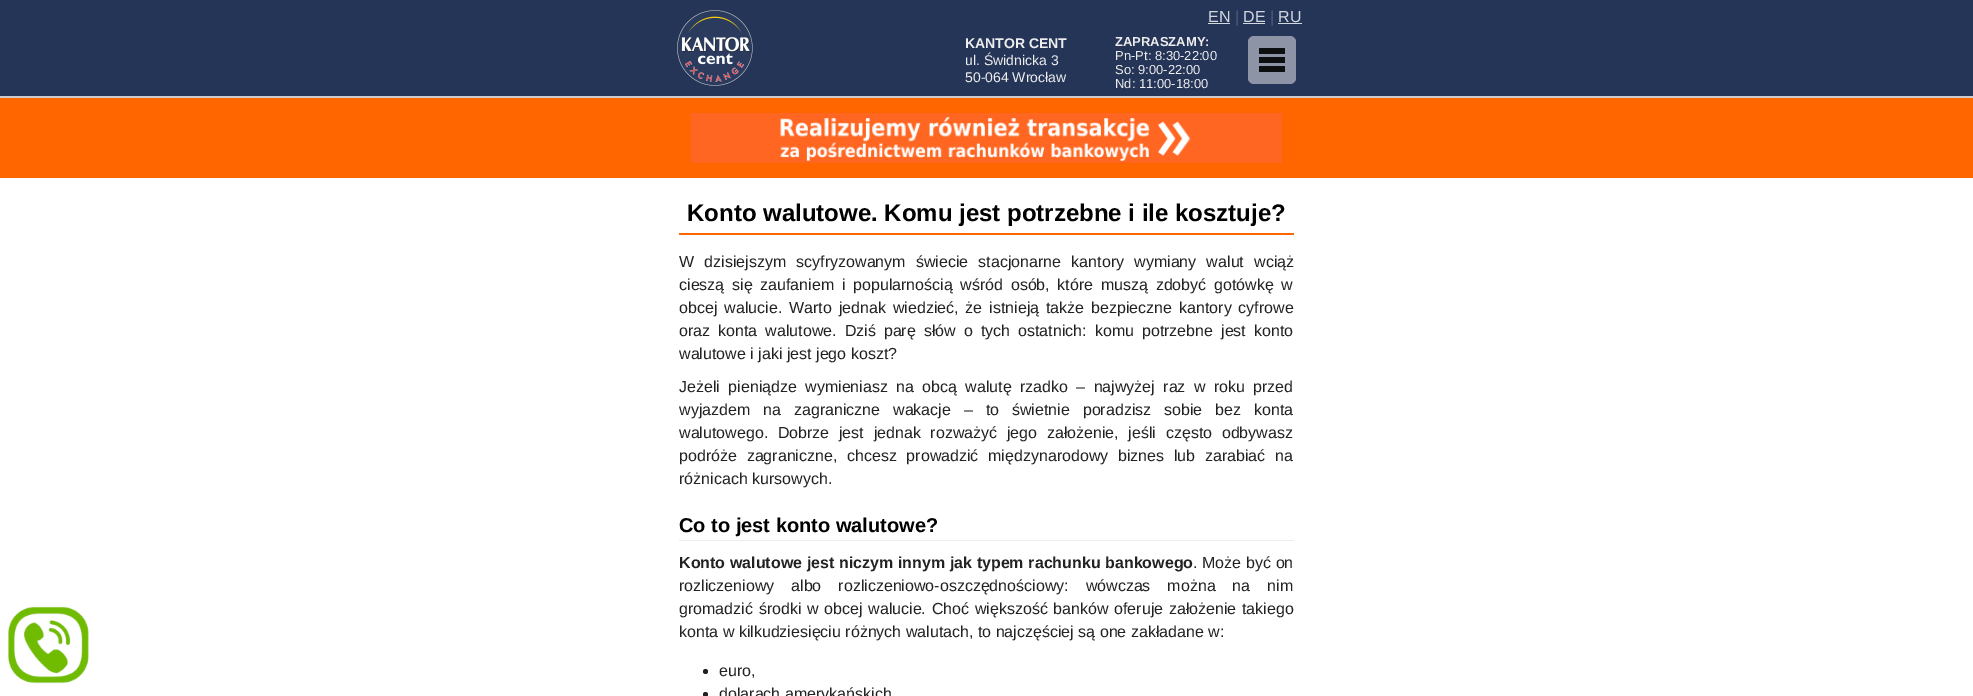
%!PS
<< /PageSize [1973 696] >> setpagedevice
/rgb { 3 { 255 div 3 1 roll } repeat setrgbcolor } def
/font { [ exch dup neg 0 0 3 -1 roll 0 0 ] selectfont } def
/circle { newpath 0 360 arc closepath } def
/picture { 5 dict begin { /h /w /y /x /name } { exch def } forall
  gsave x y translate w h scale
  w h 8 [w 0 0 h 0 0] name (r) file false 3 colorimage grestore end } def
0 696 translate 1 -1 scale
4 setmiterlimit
37 53 88 rgb
0 0 1973 696 rectfill
204 204 204 rgb
0 96 1973 2 rectfill
(img/1.rgb) 677 10 76 76 picture
[
  [1208 23 22 1 211 215 222]
  [1243 23 22 1 211 215 222]
  [1278 23 24 1 211 215 222]
] { aload pop rgb rectfill } forall
(img/2.rgb) 1248 36 48 48 picture
255 102 0 rgb
0 98 1973 80 rectfill
(img/3.rgb) 691 113 591 50 picture
255 255 255 rgb
0 178 1973 518 rectfill
(img/4.rgb) 8 606 81 78 picture
255 102 0 rgb
679 233 615 2 rectfill
238 238 238 rgb
679 540 615 1 rectfill
34 34 34 rgb
705.5 671.5 2.5 circle fill
705.5 694.5 2.5 circle fill
/LiberationSans-Regular 16 font
211 215 222 rgb
1208 22 moveto (EN) show
81 93 121 rgb
1235 22 moveto (|) show
211 215 222 rgb
1243 22 moveto (DE) show
81 93 121 rgb
1270 22 moveto (|) show
211 215 222 rgb
1278 22 moveto (RU) show
/LiberationSans-Bold 14 font
238 238 238 rgb
965 48 moveto (KANTOR CENT) show
/LiberationSans-Regular 14 font
965 65 moveto (ul. Świdnicka 3) show
965 82 moveto (50-064 Wrocław) show
/LiberationSans-Bold 13 font
1115 46 moveto (ZAPRASZAMY:) show
/LiberationSans-Regular 13 font
[
  [(Pn-Pt: 8:30-22:00) 1115 60]
  [(So: 9:00-22:00) 1115 74]
  [(Nd: 11:00-18:00) 1115 88]
] { aload pop moveto show } forall
/LiberationSans-Bold 24 font
0 0 0 rgb
687 221 moveto (Konto walutowe. Komu jest potrzebne i ile kosztuje?) show
/LiberationSans-Regular 16 font
34 34 34 rgb
679 267 moveto 5.75 0 32 (W dzisiejszym scyfryzowanym świecie stacjonarne kantory wymiany walut wciąż) widthshow
679 290 moveto 3.25 0 32 (cieszą się zaufaniem i popularnością wśród osób, które muszą zdobyć gotówkę w) widthshow
679 313 moveto 2.5 0 32 (obcej walucie. Warto jednak wiedzieć, że istnieją także bezpieczne kantory cyfrowe) widthshow
679 336 moveto 3.6 0 32 (oraz konta walutowe. Dziś parę słów o tych ostatnich: komu potrzebne jest konto) widthshow
679 359 moveto (walutowe i jaki jest jego koszt?) show
679 392 moveto 3.9 0 32 (Jeżeli pieniądze wymieniasz na obcą walutę rzadko – najwyżej raz w roku przed) widthshow
679 415 moveto 8.5 0 32 (wyjazdem na zagraniczne wakacje – to świetnie poradzisz sobie bez konta) widthshow
679 438 moveto 5.25 0 32 (walutowego. Dobrze jest jednak rozważyć jego założenie, jeśli często odbywasz) widthshow
679 461 moveto 5.25 0 32 (podróże zagraniczne, chcesz prowadzić międzynarodowy biznes lub zarabiać na) widthshow
679 484 moveto (różnicach kursowych.) show
/LiberationSans-Bold 20 font
0 0 0 rgb
679 532 moveto (Co to jest konto walutowe?) show
/LiberationSans-Bold 16 font
34 34 34 rgb
679 568 moveto 0.25 0 32 (Konto walutowe jest niczym innym jak typem rachunku bankowego) widthshow
/LiberationSans-Regular 16 font
1193 568 moveto 0.25 0 32 (. Może być on) widthshow
679 591 moveto 12.5 0 32 (rozliczeniowy albo rozliczeniowo-oszczędnościowy: wówczas można na nim) widthshow
679 614 moveto 1.25 0 32 (gromadzić środki w obcej walucie. Choć większość banków oferuje założenie takiego) widthshow
[
  [(konta w kilkudziesięciu różnych walutach, to najczęściej są one zakładane w:) 679 637]
  [(euro,) 719 676]
  [(dolarach amerykańskich) 719 699]
] { aload pop moveto show } forall
showpage
